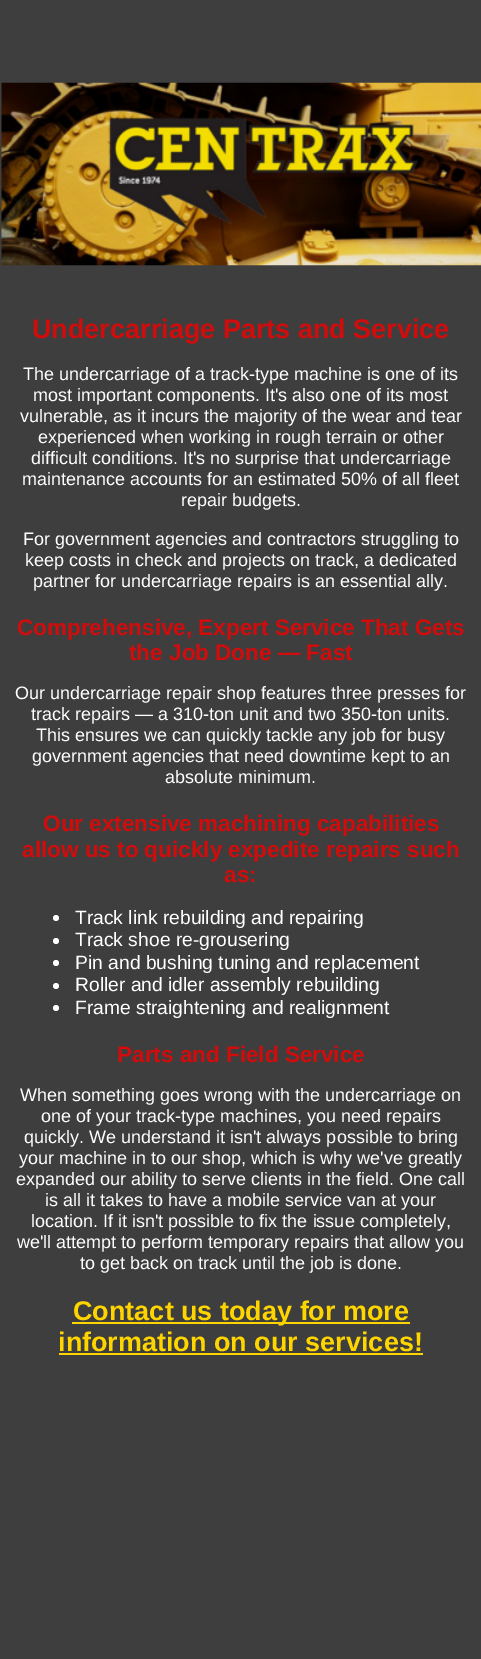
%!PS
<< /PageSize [481 1659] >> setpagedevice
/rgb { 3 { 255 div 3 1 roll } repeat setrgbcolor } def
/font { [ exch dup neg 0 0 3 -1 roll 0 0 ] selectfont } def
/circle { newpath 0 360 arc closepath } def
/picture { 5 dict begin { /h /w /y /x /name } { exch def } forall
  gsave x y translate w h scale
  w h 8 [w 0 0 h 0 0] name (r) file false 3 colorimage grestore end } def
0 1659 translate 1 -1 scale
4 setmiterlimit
63 62 62 rgb
0 0 481 1659 rectfill
(img/1.rgb) 1 82 480 184 picture
255 255 255 rgb
56 918 3 circle fill
56 941 3 circle fill
56 963 3 circle fill
56 986 3 circle fill
56 1008 3 circle fill
255 213 0 rgb
72 1322 338 2 rectfill
59 1353 364 2 rectfill
/LiberationSans-Bold 27 font
208 12 12 rgb
32 338 moveto (Undercarriage Parts and Service) show
/LiberationSans-Regular 18 font
255 255 255 rgb
[
  [(The undercarriage of a track-type machine is one of its) 23 380]
  [(most important components. It's also one of its most) 33 401]
  [(vulnerable, as it incurs the majority of the wear and tear) 20 422]
  [(experienced when working in rough terrain or other) 38 443]
  [(difficult conditions. It's no surprise that undercarriage) 31 464]
  [(maintenance accounts for an estimated 50% of all fleet) 22 485]
  [(repair budgets.) 181 506]
  [(For government agencies and contractors struggling to) 23 545]
  [(keep costs in check and projects on track, a dedicated) 25 566]
  [(partner for undercarriage repairs is an essential ally.) 33 587]
] { aload pop moveto show } forall
/LiberationSans-Bold 22.5 font
208 12 12 rgb
17 635 moveto (Comprehensive, Expert Service That Gets) show
129 660 moveto (the Job Done — Fast) show
/LiberationSans-Regular 18 font
255 255 255 rgb
[
  [(Our undercarriage repair shop features three presses for) 15 699]
  [(track repairs — a 310-ton unit and two 350-ton units.) 31 720]
  [(This ensures we can quickly tackle any job for busy) 36 741]
  [(government agencies that need downtime kept to an) 32 762]
  [(absolute minimum.) 165 783]
] { aload pop moveto show } forall
/LiberationSans-Bold 22.5 font
208 12 12 rgb
[
  [(Our extensive machining capabilities) 43 831]
  [(allow us to quickly expedite repairs such) 22 857]
  [(as:) 224 882]
] { aload pop moveto show } forall
/LiberationSans-Regular 19.25 font
255 255 255 rgb
[
  [(Track link rebuilding and repairing) 75 924]
  [(Track shoe re-grousering) 75 946]
  [(Pin and bushing tuning and replacement) 75 969]
  [(Roller and idler assembly rebuilding) 75 991]
  [(Frame straightening and realignment) 75 1014]
] { aload pop moveto show } forall
/LiberationSans-Bold 22.5 font
208 12 12 rgb
117 1062 moveto (Parts and Field Service) show
/LiberationSans-Regular 18 font
255 255 255 rgb
[
  [(When something goes wrong with the undercarriage on) 20 1101]
  [(one of your track-type machines, you need repairs) 41 1122]
  [(quickly. We understand it isn't always possible to bring) 24 1143]
  [(your machine in to our shop, which is why we've greatly) 19 1164]
  [(expanded our ability to serve clients in the field. One call) 16 1185]
  [(is all it takes to have a mobile service van at your) 45 1206]
  [(location. If it isn't possible to fix the issue completely,) 31 1227]
  [(we'll attempt to perform temporary repairs that allow you) 17 1248]
  [(to get back on track until the job is done.) 80 1269]
] { aload pop moveto show } forall
/LiberationSans-Bold 27 font
255 213 0 rgb
73 1320 moveto (Contact us today for more) show
58 1351 moveto (information on our services!) show
showpage
